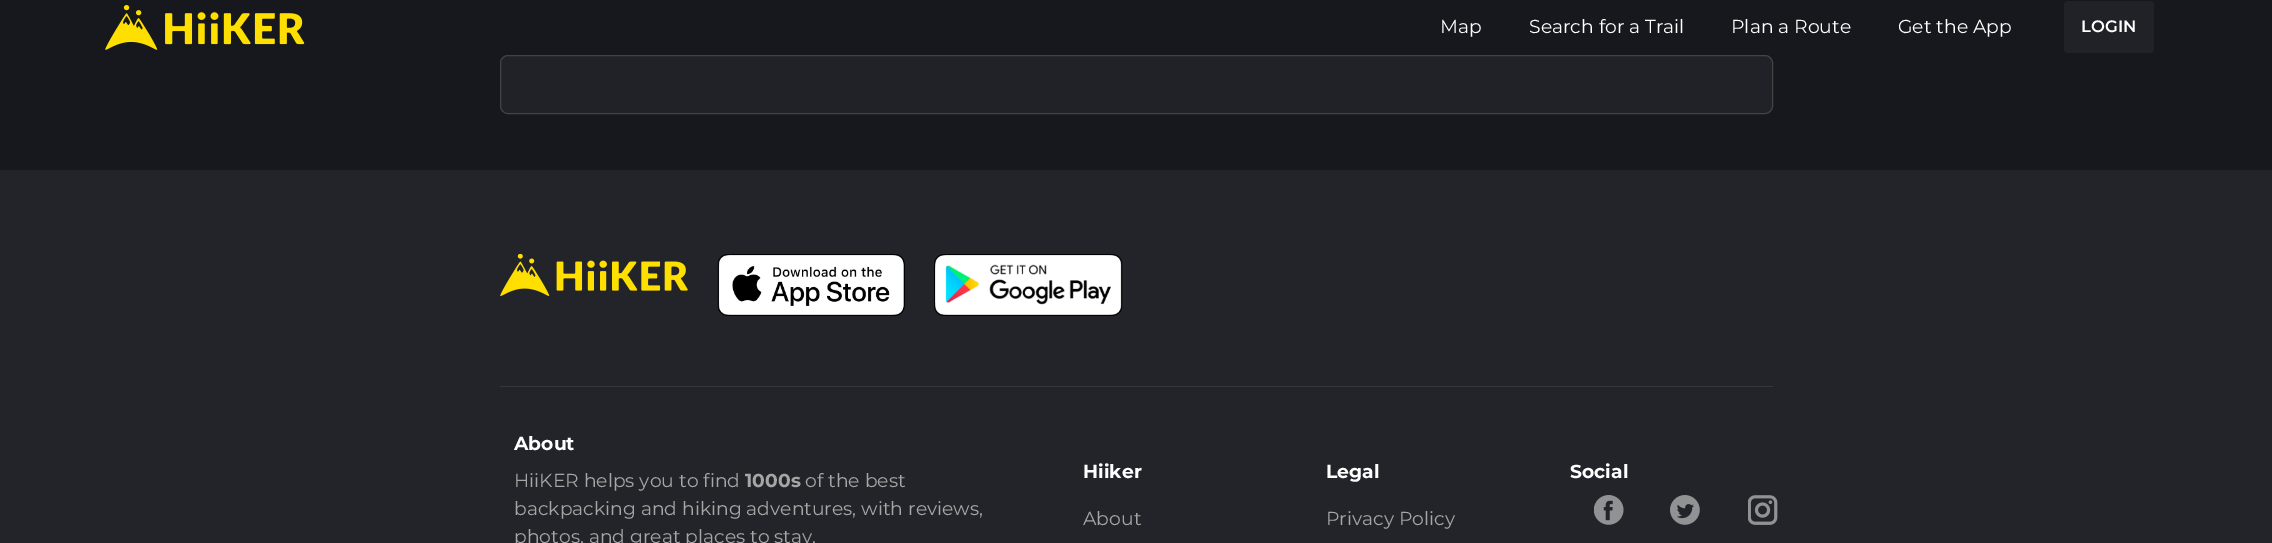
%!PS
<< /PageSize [2272 543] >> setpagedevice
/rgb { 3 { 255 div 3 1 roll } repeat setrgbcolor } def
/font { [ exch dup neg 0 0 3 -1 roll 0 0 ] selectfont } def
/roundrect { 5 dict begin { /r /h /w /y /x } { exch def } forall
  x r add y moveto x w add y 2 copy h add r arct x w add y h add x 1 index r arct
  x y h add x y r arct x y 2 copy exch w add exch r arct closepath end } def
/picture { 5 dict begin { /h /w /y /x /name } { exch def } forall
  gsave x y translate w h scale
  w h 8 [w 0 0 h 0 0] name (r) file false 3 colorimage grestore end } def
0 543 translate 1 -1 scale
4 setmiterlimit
23 24 29 rgb
0 0 2272 543 rectfill
(img/1.rgb) 105 5 200 45 picture
33 34 40 rgb
2064 1 90 52 4 roundrect fill
500.5 55.5 1272 58 7.5 roundrect gsave fill grestore
67 67 67 rgb
stroke
34 36 41 rgb
0 170 2272 373 rectfill
(img/2.rgb) 500 254 188 42 picture
(img/3.rgb) 717 254 188 62 picture
(img/4.rgb) 934 254 189 62 picture
53 55 58 rgb
500 386 1273 1 rectfill
(img/5.rgb) 1594 495 30 30 picture
(img/6.rgb) 1670 495 30 30 picture
(img/7.rgb) 1748 495 30 30 picture
/Montserrat-Regular 18.75 font
255 255 255 rgb
[
  [(Map) 1440 33]
  [(Search for a Trail) 1529 33]
  [(Plan a Route) 1731 33]
  [(Get the App) 1898 33]
] { aload pop moveto show } forall
/Montserrat-SemiBold 16.5 font
2081 32 moveto (LOGIN) show
/Montserrat-Bold 18.75 font
514 450 moveto (About) show
/Montserrat-Regular 18.75 font
166 166 166 rgb
514 487 moveto (HiiKER helps you to find) show
/Montserrat-Bold 18.75 font
745 487 moveto (1000s) show
/Montserrat-Regular 18.75 font
[
  [(of the best) 805 487]
  [(backpacking and hiking adventures, with reviews,) 514 515]
  [(photos, and great places to stay.) 514 543]
] { aload pop moveto show } forall
/Montserrat-Bold 18.75 font
255 255 255 rgb
1083 478 moveto (Hiiker) show
/Montserrat-Regular 18.75 font
166 166 166 rgb
1083 525 moveto (About) show
/Montserrat-Bold 18.75 font
255 255 255 rgb
1326 478 moveto (Legal) show
/Montserrat-Regular 18.75 font
166 166 166 rgb
1326 525 moveto (Privacy Policy) show
/Montserrat-Bold 18.75 font
255 255 255 rgb
1570 478 moveto (Social) show
showpage
